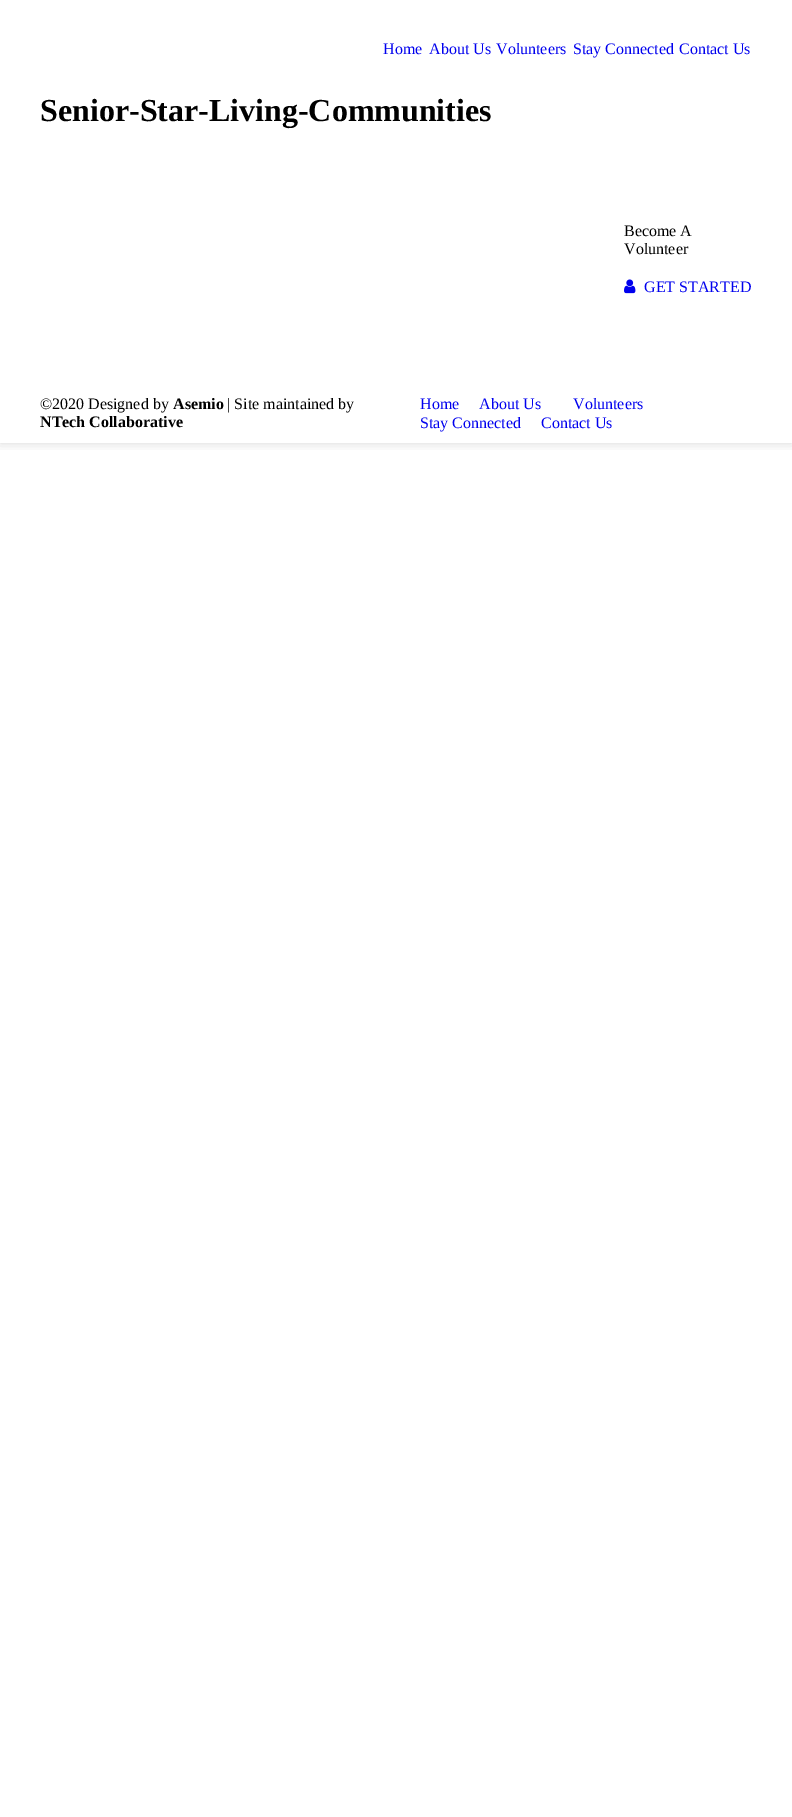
%!PS
<< /PageSize [792 1817] /PageUsesTransparency true >> setpagedevice
/rgb { 3 { 255 div 3 1 roll } repeat setrgbcolor } def
/font { [ exch dup neg 0 0 3 -1 roll 0 0 ] selectfont } def
/alpha { dup .setfillconstantalpha .setstrokeconstantalpha } def
/roundrect { 5 dict begin { /r /h /w /y /x } { exch def } forall
  x r add y moveto x w add y 2 copy h add r arct x w add y h add x 1 index r arct
  x y h add x y r arct x y 2 copy exch w add exch r arct closepath end } def
/shadow { 12 dict begin { /a /b /q /h /w /y /x } { exch def } forall gsave /was 0 def
  9 -2 -9 { dup b mul 4 div /e exch def 1 sub .425 mul 2.718 exch exp 1 add a .99 .min exch div /now exch def
    1 1 now sub 1 was sub div sub alpha /was now def
    w h .min e 2 mul add 0 gt { x e sub y e sub w e 2 mul add h e 2 mul add
      q e add b .6 mul add w h .min 2 div e add .min 0 .max roundrect fill } if } for grestore end } def
/picture { 5 dict begin { /h /w /y /x /name } { exch def } forall
  gsave x y translate w h scale
  w h 8 [w 0 0 h 0 0] name (r) file false 3 colorimage grestore end } def
0 .pushpdf14devicefilter
0 1817 translate 1 -1 scale
4 setmiterlimit
255 255 255 rgb
0 0 792 1817 rectfill
gsave
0 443 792 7 rectclip
0 0 0 rgb
0 0 792 443 0 6 0.15 shadow
grestore
(img/1.rgb) 624 279 12 15 picture
/LiberationSerif-Regular 16 font
0 0 238 rgb
[
  [(Home) 383 54]
  [(About Us) 429 54]
  [(Volunteers) 496 54]
  [(Stay Connected) 573 54]
  [(Contact Us) 679 54]
] { aload pop moveto show } forall
/LiberationSerif-Bold 32 font
0 0 0 rgb
40 121 moveto (Senior-Star-Living-Communities) show
/LiberationSerif-Regular 16 font
624 236 moveto (Become A) show
624 254 moveto (Volunteer) show
0 0 238 rgb
644 292 moveto (GET STARTED) show
0 0 0 rgb
40 409 moveto (©2020 Designed by) show
/LiberationSerif-Bold 16 font
173 409 moveto (Asemio) show
/LiberationSerif-Regular 16 font
227 409 moveto (| Site maintained by) show
/LiberationSerif-Bold 16 font
40 427 moveto (NTech Collaborative) show
/LiberationSerif-Regular 16 font
0 0 238 rgb
[
  [(Home) 420 409]
  [(About Us) 479 409]
  [(Volunteers) 573 409]
  [(Stay Connected) 420 428]
  [(Contact Us) 541 428]
] { aload pop moveto show } forall
.poppdf14devicefilter showpage
